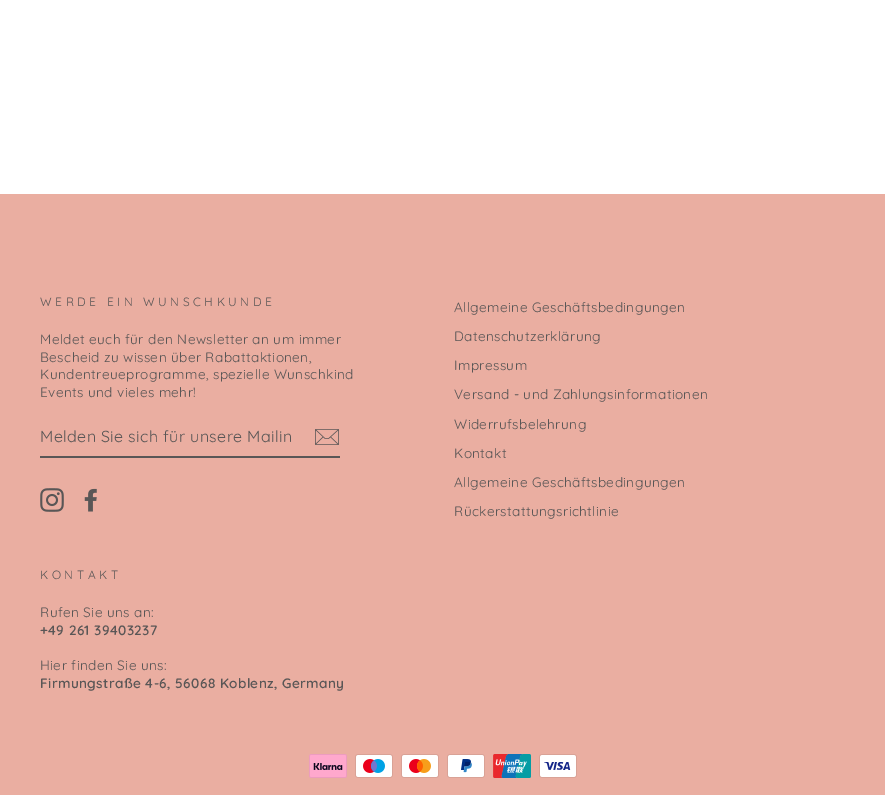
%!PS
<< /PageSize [885 795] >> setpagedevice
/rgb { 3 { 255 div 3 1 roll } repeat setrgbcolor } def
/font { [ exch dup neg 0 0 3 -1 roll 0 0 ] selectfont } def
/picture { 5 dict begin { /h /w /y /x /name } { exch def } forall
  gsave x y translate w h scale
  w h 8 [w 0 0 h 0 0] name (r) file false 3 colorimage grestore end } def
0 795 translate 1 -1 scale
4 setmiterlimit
255 255 255 rgb
0 0 885 795 rectfill
234 174 161 rgb
0 194 885 601 rectfill
89 86 86 rgb
40 456 300 2 rectfill
(img/1.rgb) 315 429 24 16 picture
(img/2.rgb) 40 488 24 24 picture
(img/3.rgb) 84 488 13 24 picture
(img/4.rgb) 309 754 38 24 picture
(img/5.rgb) 355 754 38 24 picture
(img/6.rgb) 401 754 38 24 picture
(img/7.rgb) 447 754 38 24 picture
(img/8.rgb) 493 754 38 24 picture
(img/9.rgb) 539 754 38 24 picture
/Quicksand-Regular 12 font
40 306 moveto 3.6 0 (WERDE EIN WUNSCHKUNDE) ashow
/Quicksand-Regular 13.6 font
40 344 moveto 0.4 0 (Meldet euch für den Newsletter an um immer) ashow
40 362 moveto 0.4 0 (Bescheid zu wissen über Rabattaktionen,) ashow
40 379 moveto 0.4 0 (Kundentreueprogramme, spezielle Wunschkind) ashow
40 397 moveto 0.4 0 (Events und vieles mehr!) ashow
/Quicksand-Regular 16 font
40 442 moveto 0.4 0 (Melden Sie sich für unsere Mailin) ashow
/Quicksand-Regular 13.6 font
454 312 moveto 0.4 0 (Allgemeine Geschäftsbedingungen) ashow
454 341 moveto 0.4 0 (Datenschutzerklärung) ashow
454 370 moveto 0.4 0 (Impressum) ashow
454 399 moveto 0.4 0 (Versand - und Zahlungsinformationen) ashow
454 429 moveto 0.4 0 (Widerrufsbelehrung) ashow
454 458 moveto 0.4 0 (Kontakt) ashow
454 487 moveto 0.4 0 (Allgemeine Geschäftsbedingungen) ashow
454 516 moveto 0.4 0 (Rückerstattungsrichtlinie) ashow
/Quicksand-Regular 12 font
40 579 moveto 3.6 0 (KONTAKT) ashow
/Quicksand-Regular 13.6 font
40 617 moveto 0.4 0 (Rufen Sie uns an:) ashow
/Quicksand-SemiBold 13.6 font
40 635 moveto 0.4 0 (+49 261 39403237) ashow
/Quicksand-Regular 13.6 font
40 670 moveto 0.4 0 (Hier finden Sie uns:) ashow
/Quicksand-SemiBold 13.6 font
40 688 moveto 0.4 0 (Firmungstraße 4-6, 56068 Koblenz, Germany) ashow
showpage
